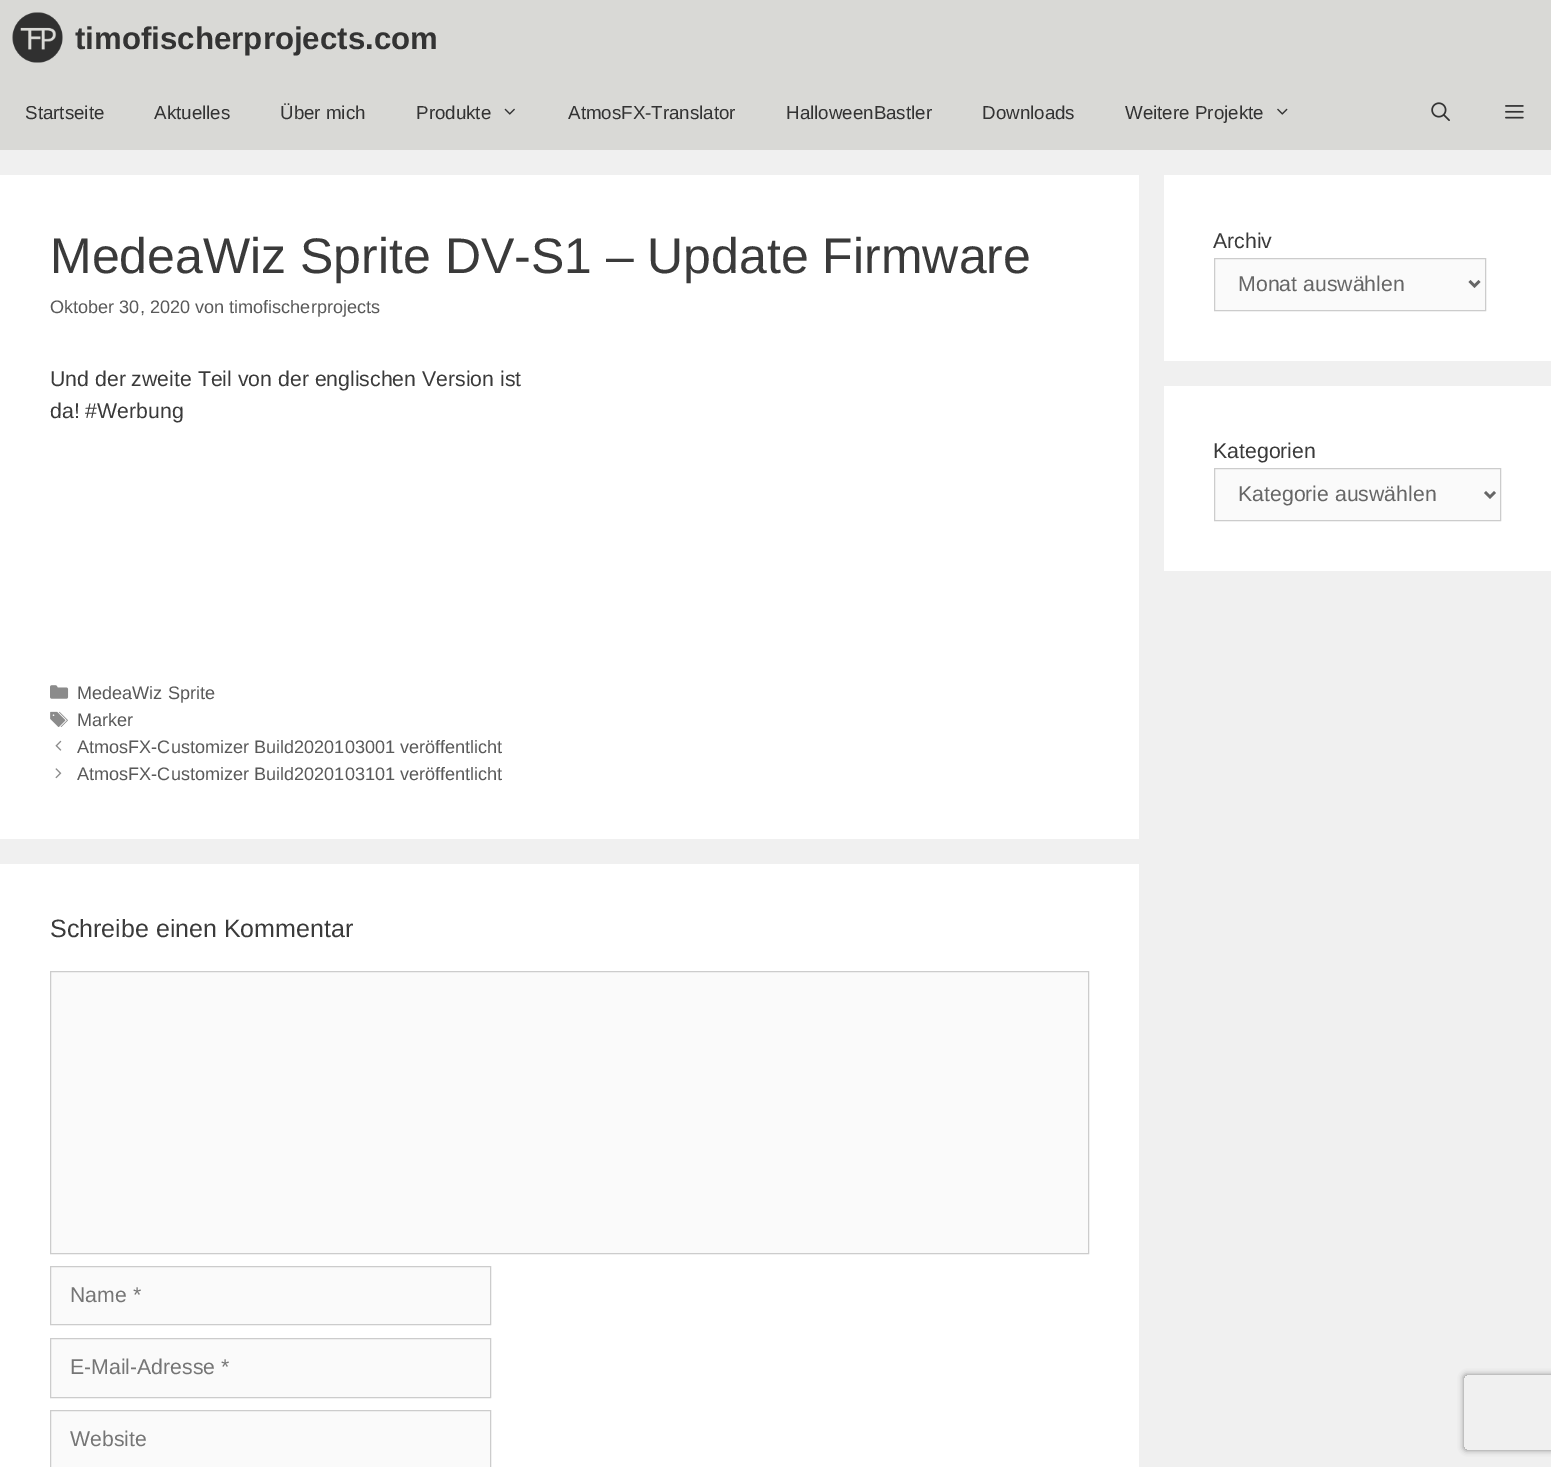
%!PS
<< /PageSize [1551 1467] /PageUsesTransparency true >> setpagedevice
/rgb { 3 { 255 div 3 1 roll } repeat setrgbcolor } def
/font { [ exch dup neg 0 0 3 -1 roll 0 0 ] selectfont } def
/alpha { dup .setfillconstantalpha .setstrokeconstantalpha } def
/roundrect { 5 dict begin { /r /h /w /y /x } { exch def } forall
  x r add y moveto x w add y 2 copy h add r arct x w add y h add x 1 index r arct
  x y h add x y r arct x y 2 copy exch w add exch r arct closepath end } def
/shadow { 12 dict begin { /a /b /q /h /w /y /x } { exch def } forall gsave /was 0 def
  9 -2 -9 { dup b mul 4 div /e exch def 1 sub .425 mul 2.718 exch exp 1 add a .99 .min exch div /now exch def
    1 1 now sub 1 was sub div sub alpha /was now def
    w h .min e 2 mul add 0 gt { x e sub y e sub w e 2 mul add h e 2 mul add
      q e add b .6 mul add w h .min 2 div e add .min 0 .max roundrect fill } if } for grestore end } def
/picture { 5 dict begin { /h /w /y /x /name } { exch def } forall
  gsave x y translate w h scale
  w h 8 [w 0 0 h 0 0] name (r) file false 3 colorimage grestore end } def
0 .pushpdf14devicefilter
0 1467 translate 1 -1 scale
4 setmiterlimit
240 240 240 rgb
0 0 1551 1467 rectfill
217 217 214 rgb
0 0 1551 150 rectfill
(img/1.rgb) 12 12 51 51 picture
(img/2.rgb) 504 108 11 7 picture
(img/3.rgb) 1277 108 11 7 picture
(img/4.rgb) 1431 102 19 19 picture
(img/5.rgb) 1505 105 19 14 picture
255 255 255 rgb
0 175 1139 664 rectfill
(img/6.rgb) 50 685 19 14 picture
(img/7.rgb) 50 711 18 16 picture
(img/8.rgb) 55 740 7 11 picture
(img/9.rgb) 55 768 7 11 picture
0 864 1139 603 rectfill
250 250 250 rgb
50.5 971.5 moveto 1088.5 971.5 lineto 1088.5 1253.5 lineto 50.5 1253.5 lineto closepath gsave fill grestore
204 204 204 rgb
stroke
250 250 250 rgb
50.5 1266.5 moveto 490.5 1266.5 lineto 490.5 1324.5 lineto 50.5 1324.5 lineto closepath gsave fill grestore
204 204 204 rgb
stroke
250 250 250 rgb
50.5 1338.5 moveto 490.5 1338.5 lineto 490.5 1397.5 lineto 50.5 1397.5 lineto closepath gsave fill grestore
204 204 204 rgb
stroke
250 250 250 rgb
50.5 1410.5 moveto 490.5 1410.5 lineto 490.5 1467.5 lineto 50.5 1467.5 lineto closepath gsave fill grestore
204 204 204 rgb
stroke
255 255 255 rgb
1164 175 387 186 rectfill
250 250 250 rgb
1214.5 258.5 moveto 1485.5 258.5 lineto 1485.5 310.5 lineto 1214.5 310.5 lineto closepath gsave fill grestore
204 204 204 rgb
stroke
102 102 102 rgb
2.5 setlinewidth
1469.5 281 moveto 1474.5 286 lineto 1479.5 281 lineto stroke
255 255 255 rgb
1164 386 387 185 rectfill
250 250 250 rgb
1214.5 468.5 moveto 1500.5 468.5 lineto 1500.5 520.5 lineto 1214.5 520.5 lineto closepath gsave fill grestore
204 204 204 rgb
1 setlinewidth
stroke
102 102 102 rgb
2.5 setlinewidth
1485 492 moveto 1490 497 lineto 1495 492 lineto stroke
gsave
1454 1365 moveto 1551 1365 lineto 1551 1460 lineto 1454 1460 lineto closepath 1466.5 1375 moveto 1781.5 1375 lineto 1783 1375 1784 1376 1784 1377.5 curveto 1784 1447.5 lineto 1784 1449 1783 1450 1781.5 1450 curveto 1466.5 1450 lineto 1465 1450 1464 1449 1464 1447.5 curveto 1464 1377.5 lineto 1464 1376 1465 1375 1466.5 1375 curveto closepath eoclip newpath
128 128 128 rgb
1464 1375 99 75 2.5 3 1 shadow
grestore
/LiberationSans-Bold 31.25 font
51 51 51 rgb
75 49 moveto (timofischerprojects.com) show
/LiberationSans-Regular 18.75 font
[
  [(Startseite) 25 119]
  [(Aktuelles) 154 119]
  [(Über mich) 280 119]
  [(Produkte) 416 119]
  [(AtmosFX-Translator) 568 119]
  [(HalloweenBastler) 786 119]
  [(Downloads) 982 119]
  [(Weitere Projekte) 1125 119]
] { aload pop moveto show } forall
/LiberationSans-Regular 50 font
58 58 58 rgb
50 273 moveto (MedeaWiz Sprite DV-S1 – Update Firmware) show
/LiberationSans-Regular 18.1 font
89 89 89 rgb
50 313 moveto (Oktober 30, 2020 von timofischerprojects) show
/LiberationSans-Regular 21.25 font
58 58 58 rgb
50 386 moveto (Und der zweite Teil von der englischen Version ist) show
50 418 moveto (da! #Werbung) show
/LiberationSans-Regular 18.1 font
89 89 89 rgb
[
  [(MedeaWiz Sprite) 77 699]
  [(Marker) 77 726]
  [(AtmosFX-Customizer Build2020103001 veröffentlicht) 77 753]
  [(AtmosFX-Customizer Build2020103101 veröffentlicht) 77 780]
] { aload pop moveto show } forall
/LiberationSans-Regular 25 font
58 58 58 rgb
50 937 moveto (Schreibe einen Kommentar) show
/LiberationSans-Regular 21.25 font
117 117 117 rgb
[
  [(Name *) 70 1302]
  [(E-Mail-Adresse *) 70 1374]
  [(Website) 70 1446]
] { aload pop moveto show } forall
58 58 58 rgb
1213 248 moveto (Archiv) show
102 102 102 rgb
1238 291 moveto (Monat auswählen) show
58 58 58 rgb
1213 458 moveto (Kategorien) show
102 102 102 rgb
1238 501 moveto (Kategorie auswählen) show
.poppdf14devicefilter showpage
